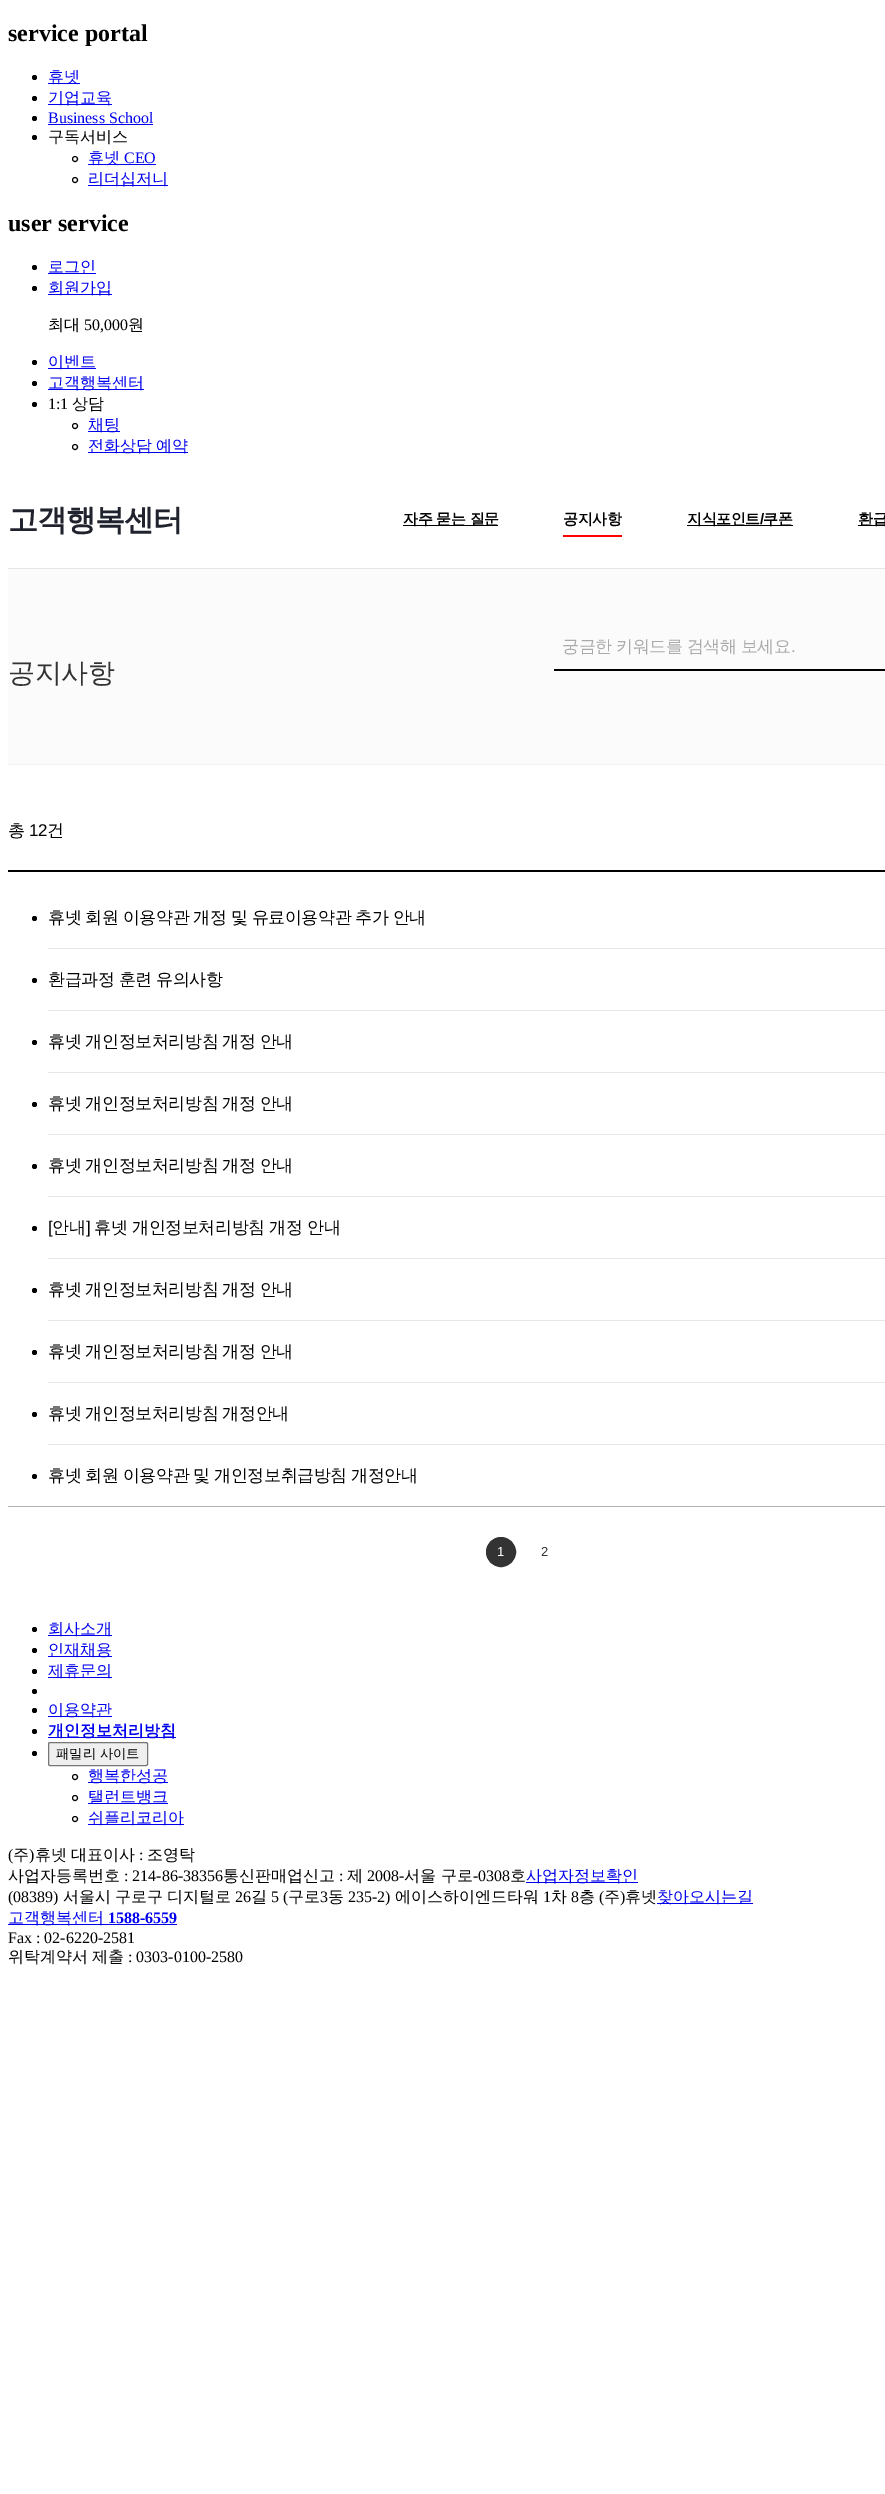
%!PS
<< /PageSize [885 2494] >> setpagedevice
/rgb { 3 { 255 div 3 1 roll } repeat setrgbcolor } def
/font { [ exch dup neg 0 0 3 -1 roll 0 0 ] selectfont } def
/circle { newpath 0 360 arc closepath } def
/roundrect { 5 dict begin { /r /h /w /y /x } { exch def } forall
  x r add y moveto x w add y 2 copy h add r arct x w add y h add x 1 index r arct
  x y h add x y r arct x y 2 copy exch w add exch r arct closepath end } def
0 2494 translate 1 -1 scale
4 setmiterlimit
255 255 255 rgb
0 0 885 2494 rectfill
0 0 0 rgb
34.5 77.5 2.5 circle fill
0 0 238 rgb
48 83 32 1 rectfill
0 0 0 rgb
34.5 98.5 2.5 circle fill
0 0 238 rgb
48 104 64 1 rectfill
0 0 0 rgb
34.5 118.5 2.5 circle fill
0 0 238 rgb
48 124 105 1 rectfill
0 0 0 rgb
34.5 137.5 2.5 circle fill
75 159 2.5 circle stroke
0 0 238 rgb
88 164 68 1 rectfill
0 0 0 rgb
75 180 2.5 circle stroke
0 0 238 rgb
88 185 80 1 rectfill
0 0 0 rgb
34.5 267.5 2.5 circle fill
0 0 238 rgb
48 273 48 1 rectfill
0 0 0 rgb
34.5 288.5 2.5 circle fill
0 0 238 rgb
48 294 64 1 rectfill
0 0 0 rgb
34.5 362.5 2.5 circle fill
0 0 238 rgb
48 368 48 1 rectfill
0 0 0 rgb
34.5 383.5 2.5 circle fill
0 0 238 rgb
48 389 96 1 rectfill
0 0 0 rgb
34.5 404.5 2.5 circle fill
75 426 2.5 circle stroke
0 0 238 rgb
88 431 32 1 rectfill
0 0 0 rgb
75 447 2.5 circle stroke
[
  [88 452 100 1 0 0 238]
  [8 568 877 1 230 230 230]
  [403 525 95 1 0 0 0]
  [563 535 59 2 255 0 0]
  [687 525 106 1 0 0 0]
  [858 525 27 1 0 0 0]
  [8 569 877 195 251 251 251]
  [8 764 877 1 242 242 242]
  [554 669 331 2 0 0 0]
  [8 870 877 2 0 0 0]
  [8 1506 877 1 179 179 179]
] { aload pop rgb rectfill } forall
0 0 0 rgb
34.5 918.5 2.5 circle fill
230 230 230 rgb
48 948 837 1 rectfill
0 0 0 rgb
34.5 980.5 2.5 circle fill
230 230 230 rgb
48 1010 837 1 rectfill
0 0 0 rgb
34.5 1042.5 2.5 circle fill
230 230 230 rgb
48 1072 837 1 rectfill
0 0 0 rgb
34.5 1104.5 2.5 circle fill
230 230 230 rgb
48 1134 837 1 rectfill
0 0 0 rgb
34.5 1166.5 2.5 circle fill
230 230 230 rgb
48 1196 837 1 rectfill
0 0 0 rgb
34.5 1228.5 2.5 circle fill
230 230 230 rgb
48 1258 837 1 rectfill
0 0 0 rgb
34.5 1290.5 2.5 circle fill
230 230 230 rgb
48 1320 837 1 rectfill
0 0 0 rgb
34.5 1352.5 2.5 circle fill
230 230 230 rgb
48 1382 837 1 rectfill
0 0 0 rgb
34.5 1414.5 2.5 circle fill
230 230 230 rgb
48 1444 837 1 rectfill
0 0 0 rgb
34.5 1476.5 2.5 circle fill
51 51 51 rgb
501 1552 14.5 circle gsave fill grestore
stroke
0 0 0 rgb
34.5 1629.5 2.5 circle fill
0 0 238 rgb
48 1635 64 1 rectfill
0 0 0 rgb
34.5 1650.5 2.5 circle fill
0 0 238 rgb
48 1656 64 1 rectfill
0 0 0 rgb
34.5 1671.5 2.5 circle fill
0 0 238 rgb
48 1677 64 1 rectfill
0 0 0 rgb
34.5 1691.5 2.5 circle fill
34.5 1710.5 2.5 circle fill
0 0 238 rgb
48 1716 64 1 rectfill
0 0 0 rgb
34.5 1731.5 2.5 circle fill
0 0 238 rgb
48 1737 128 1 rectfill
0 0 0 rgb
34.5 1753.5 2.5 circle fill
239 239 239 rgb
48.5 1742.5 99 23 1.5 roundrect gsave fill grestore
118 118 118 rgb
stroke
0 0 0 rgb
75 1777 2.5 circle stroke
0 0 238 rgb
88 1782 80 1 rectfill
0 0 0 rgb
75 1798 2.5 circle stroke
0 0 238 rgb
88 1803 80 1 rectfill
0 0 0 rgb
75 1819 2.5 circle stroke
[
  [88 1824 96 1 0 0 238]
  [526 1882 112 1 0 0 238]
  [657 1903 96 1 0 0 238]
  [8 1924 169 1 0 0 238]
] { aload pop rgb rectfill } forall
/LiberationSerif-Bold 24 font
0 0 0 rgb
8 41 moveto (service portal) show
/WenQuanYiZenHei-Medium 16 font
0 0 238 rgb
48 82 moveto (휴넷) show
48 103 moveto (기업교육) show
/LiberationSerif-Regular 16 font
48 123 moveto (Business School) show
/WenQuanYiZenHei-Medium 16 font
0 0 0 rgb
48 142 moveto (구독서비스) show
0 0 238 rgb
88 163 moveto (휴넷) show
/LiberationSerif-Regular 16 font
124 163 moveto (CEO) show
/WenQuanYiZenHei-Medium 16 font
88 184 moveto (리더십저니) show
/LiberationSerif-Bold 24 font
0 0 0 rgb
8 231 moveto (user service) show
/WenQuanYiZenHei-Medium 16 font
0 0 238 rgb
48 272 moveto (로그인) show
48 293 moveto (회원가입) show
0 0 0 rgb
48 330 moveto (최대) show
/LiberationSerif-Regular 16 font
84 330 moveto (50,000) show
/WenQuanYiZenHei-Medium 16 font
128 330 moveto (원) show
0 0 238 rgb
48 367 moveto (이벤트) show
48 388 moveto (고객행복센터) show
/LiberationSerif-Regular 16 font
0 0 0 rgb
48 409 moveto (1:1) show
/WenQuanYiZenHei-Medium 16 font
72 409 moveto (상담) show
0 0 238 rgb
88 430 moveto (채팅) show
88 451 moveto -1 0 32 (전화상담 예약) widthshow
/WenQuanYiZenHei-Bold 30 font
32 34 45 rgb
8 530 moveto -1 0 (고객행복센터) ashow
/WenQuanYiZenHei-Bold 15 font
0 0 0 rgb
403 524 moveto -0.4 0 (자주 묻는 질문) ashow
563 524 moveto -0.4 0 (공지사항) ashow
687 524 moveto -0.4 0 (지식포인트) ashow
/LiberationSans-Bold 15 font
760 524 moveto -0.4 0 (/) ashow
/WenQuanYiZenHei-Bold 15 font
763 524 moveto -0.4 0 (쿠폰) ashow
858 524 moveto -0.4 0 (환급) ashow
/WenQuanYiZenHei-Medium 17 font
170 170 170 rgb
562 652 moveto -0.5 0 32 -0.4 0 (궁금한 키워드를 검색해 보세요) awidthshow
/LiberationSans-Regular 17 font
791 652 moveto -0.4 0 (.) ashow
/WenQuanYiZenHei-Medium 27 font
51 51 51 rgb
8 682 moveto -0.4 0 (공지사항) ashow
/WenQuanYiZenHei-Medium 17 font
0 0 0 rgb
8 836 moveto -0.4 0 (총) ashow
/LiberationSans-Regular 17 font
29 836 moveto -0.4 0 (12) ashow
/WenQuanYiZenHei-Medium 17 font
47 836 moveto -0.4 0 (건) ashow
48 923 moveto -0.5 0 32 -0.4 0 (휴넷 회원 이용약관 개정 및 유료이용약관 추가 안내) awidthshow
48 985 moveto -0.5 0 32 -0.4 0 (환급과정 훈련 유의사항) awidthshow
48 1047 moveto -0.5 0 32 -0.4 0 (휴넷 개인정보처리방침 개정 안내) awidthshow
48 1109 moveto -0.5 0 32 -0.4 0 (휴넷 개인정보처리방침 개정 안내) awidthshow
48 1171 moveto -0.5 0 32 -0.4 0 (휴넷 개인정보처리방침 개정 안내) awidthshow
/LiberationSans-Regular 17 font
48 1233 moveto -0.4 0 ([) ashow
/WenQuanYiZenHei-Medium 17 font
52 1233 moveto -0.4 0 (안내) ashow
/LiberationSans-Regular 17 font
86 1233 moveto -0.4 0 (]) ashow
/WenQuanYiZenHei-Medium 17 font
94 1233 moveto -0.4 0 (휴넷 개인정보처리방침 개정 안내) ashow
48 1295 moveto -0.5 0 32 -0.4 0 (휴넷 개인정보처리방침 개정 안내) awidthshow
48 1357 moveto -0.5 0 32 -0.4 0 (휴넷 개인정보처리방침 개정 안내) awidthshow
48 1419 moveto -0.5 0 32 -0.4 0 (휴넷 개인정보처리방침 개정안내) awidthshow
48 1481 moveto -0.5 0 32 -0.4 0 (휴넷 회원 이용약관 및 개인정보취급방침 개정안내) awidthshow
/LiberationSans-Regular 13 font
255 255 255 rgb
497 1556 moveto -0.4 0 (1) ashow
51 51 51 rgb
541 1556 moveto -0.4 0 (2) ashow
/WenQuanYiZenHei-Medium 16 font
0 0 238 rgb
[
  [(회사소개) 48 1634]
  [(인재채용) 48 1655]
  [(제휴문의) 48 1676]
  [(이용약관) 48 1715]
] { aload pop moveto show } forall
/WenQuanYiZenHei-Bold 16 font
48 1736 moveto (개인정보처리방침) show
/WenQuanYiZenHei-Medium 13.25 font
0 0 0 rgb
56 1758 moveto (패밀리 사이트) show
/WenQuanYiZenHei-Medium 16 font
0 0 238 rgb
[
  [(행복한성공) 88 1781]
  [(탤런트뱅크) 88 1802]
  [(쉬플리코리아) 88 1823]
] { aload pop moveto show } forall
/LiberationSerif-Regular 16 font
0 0 0 rgb
8 1860 moveto (\() show
/WenQuanYiZenHei-Medium 16 font
13 1860 moveto (주) show
/LiberationSerif-Regular 16 font
29 1860 moveto (\)) show
/WenQuanYiZenHei-Medium 16 font
35 1860 moveto (휴넷) show
71 1860 moveto (대표이사) show
/LiberationSerif-Regular 16 font
139 1860 moveto (:) show
/WenQuanYiZenHei-Medium 16 font
147 1860 moveto (조영탁) show
8 1881 moveto (사업자등록번호) show
/LiberationSerif-Regular 16 font
124 1881 moveto (: 214-86-38356) show
/WenQuanYiZenHei-Medium 16 font
223 1881 moveto (통신판매업신고) show
/LiberationSerif-Regular 16 font
339 1881 moveto (:) show
/WenQuanYiZenHei-Medium 16 font
347 1881 moveto (제) show
/LiberationSerif-Regular 16 font
367 1881 moveto (2008-) show
/WenQuanYiZenHei-Medium 16 font
404 1881 moveto (서울 구로) show
/LiberationSerif-Regular 16 font
473 1881 moveto (-0308) show
/WenQuanYiZenHei-Medium 16 font
510 1881 moveto (호) show
0 0 238 rgb
526 1881 moveto (사업자정보확인) show
/LiberationSerif-Regular 16 font
0 0 0 rgb
8 1902 moveto (\(08389\)) show
/WenQuanYiZenHei-Medium 16 font
[
  [(서울시) 63 1902]
  [(구로구) 115 1902]
  [(디지털로) 167 1902]
] { aload pop moveto show } forall
/LiberationSerif-Regular 16 font
235 1902 moveto (26) show
/WenQuanYiZenHei-Medium 16 font
251 1902 moveto (길) show
/LiberationSerif-Regular 16 font
271 1902 moveto (5 \() show
/WenQuanYiZenHei-Medium 16 font
288 1902 moveto (구로) show
/LiberationSerif-Regular 16 font
320 1902 moveto (3) show
/WenQuanYiZenHei-Medium 16 font
328 1902 moveto (동) show
/LiberationSerif-Regular 16 font
348 1902 moveto (235-2\)) show
/WenQuanYiZenHei-Medium 16 font
395 1902 moveto (에이스하이엔드타워) show
/LiberationSerif-Regular 16 font
543 1902 moveto (1) show
/WenQuanYiZenHei-Medium 16 font
551 1902 moveto (차) show
/LiberationSerif-Regular 16 font
571 1902 moveto (8) show
/WenQuanYiZenHei-Medium 16 font
579 1902 moveto (층) show
/LiberationSerif-Regular 16 font
599 1902 moveto (\() show
/WenQuanYiZenHei-Medium 16 font
604 1902 moveto (주) show
/LiberationSerif-Regular 16 font
620 1902 moveto (\)) show
/WenQuanYiZenHei-Medium 16 font
625 1902 moveto (휴넷) show
0 0 238 rgb
657 1902 moveto (찾아오시는길) show
8 1923 moveto (고객행복센터) show
/LiberationSerif-Bold 16 font
108 1923 moveto (1588-6559) show
/LiberationSerif-Regular 16 font
0 0 0 rgb
8 1943 moveto (Fax : 02-6220-2581) show
/WenQuanYiZenHei-Medium 16 font
8 1962 moveto (위탁계약서) show
92 1962 moveto (제출) show
/LiberationSerif-Regular 16 font
128 1962 moveto (: 0303-0100-2580) show
showpage
